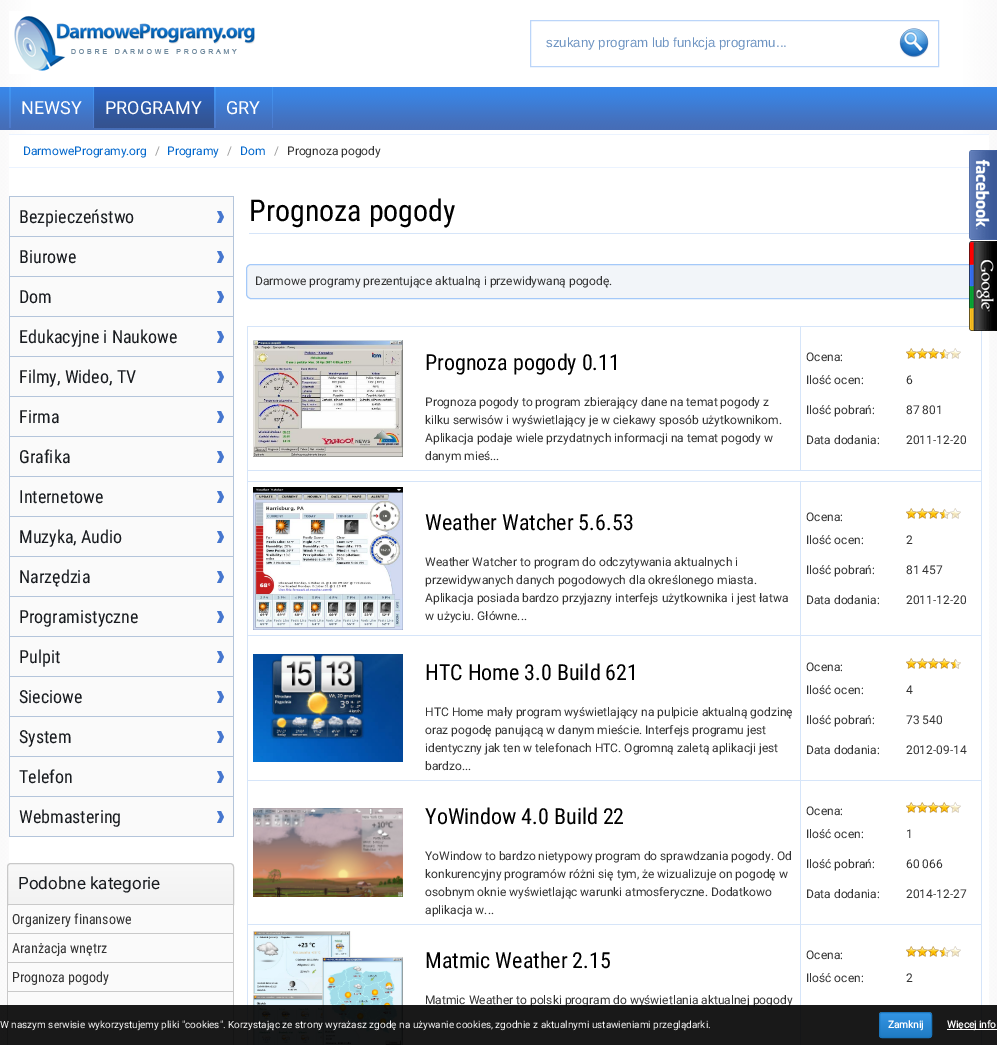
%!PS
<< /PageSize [997 1045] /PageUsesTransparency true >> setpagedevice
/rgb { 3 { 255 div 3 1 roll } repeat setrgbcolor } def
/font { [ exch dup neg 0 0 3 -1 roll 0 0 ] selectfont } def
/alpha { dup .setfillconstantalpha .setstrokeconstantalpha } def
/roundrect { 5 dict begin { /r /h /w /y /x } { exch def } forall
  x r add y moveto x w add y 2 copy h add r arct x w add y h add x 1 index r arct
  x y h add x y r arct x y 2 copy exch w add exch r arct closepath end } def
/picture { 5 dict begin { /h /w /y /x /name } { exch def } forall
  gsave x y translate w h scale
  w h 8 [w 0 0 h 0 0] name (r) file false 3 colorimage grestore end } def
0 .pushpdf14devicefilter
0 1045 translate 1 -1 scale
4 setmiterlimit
255 255 255 rgb
0 0 997 1045 rectfill
(img/1.rgb) 0 130 997 915 picture
(img/2.rgb) 0 0 997 87 picture
(img/3.rgb) 0 87 997 43 picture
(img/4.rgb) 9 11 246 63 picture
187 213 249 rgb
530.5 20.5 408 46 rectstroke
(img/5.rgb) 899 28 30 30 picture
(img/6.rgb) 9 87 2 41 picture
(img/7.rgb) 93 87 121 41 picture
(img/6.rgb) 214 87 2 41 picture
(img/8.rgb) 272 87 1 41 picture
[
  [9 135 980 910 255 255 255]
  [9 134 980 1 235 243 255]
  [9 167 960 1 235 243 255]
  [9 836 225 1 180 197 219]
  [10 197 223 39 250 250 250]
  [9 196 225 1 180 197 219]
  [233 196 1 40 180 197 219]
  [9 196 1 40 180 197 219]
] { aload pop rgb rectfill } forall
70 119 207 rgb
217 211 moveto 221 211 lineto 224 217 lineto 220 217 lineto closepath 220 217 moveto 224 217 lineto 221 223 lineto 217 223 lineto closepath fill
[
  [10 237 223 39 250 250 250]
  [9 236 225 1 180 197 219]
  [233 236 1 40 180 197 219]
  [9 236 1 40 180 197 219]
] { aload pop rgb rectfill } forall
70 119 207 rgb
217 251 moveto 221 251 lineto 224 257 lineto 220 257 lineto closepath 220 257 moveto 224 257 lineto 221 263 lineto 217 263 lineto closepath fill
[
  [10 277 223 39 250 250 250]
  [9 276 225 1 180 197 219]
  [233 276 1 40 180 197 219]
  [9 276 1 40 180 197 219]
] { aload pop rgb rectfill } forall
70 119 207 rgb
217 291 moveto 221 291 lineto 224 297 lineto 220 297 lineto closepath 220 297 moveto 224 297 lineto 221 303 lineto 217 303 lineto closepath fill
[
  [10 317 223 39 250 250 250]
  [9 316 225 1 180 197 219]
  [233 316 1 40 180 197 219]
  [9 316 1 40 180 197 219]
] { aload pop rgb rectfill } forall
70 119 207 rgb
217 331 moveto 221 331 lineto 224 337 lineto 220 337 lineto closepath 220 337 moveto 224 337 lineto 221 343 lineto 217 343 lineto closepath fill
[
  [10 357 223 39 250 250 250]
  [9 356 225 1 180 197 219]
  [233 356 1 40 180 197 219]
  [9 356 1 40 180 197 219]
] { aload pop rgb rectfill } forall
70 119 207 rgb
217 371 moveto 221 371 lineto 224 377 lineto 220 377 lineto closepath 220 377 moveto 224 377 lineto 221 383 lineto 217 383 lineto closepath fill
[
  [10 397 223 39 250 250 250]
  [9 396 225 1 180 197 219]
  [233 396 1 40 180 197 219]
  [9 396 1 40 180 197 219]
] { aload pop rgb rectfill } forall
70 119 207 rgb
217 411 moveto 221 411 lineto 224 417 lineto 220 417 lineto closepath 220 417 moveto 224 417 lineto 221 423 lineto 217 423 lineto closepath fill
[
  [10 437 223 39 250 250 250]
  [9 436 225 1 180 197 219]
  [233 436 1 40 180 197 219]
  [9 436 1 40 180 197 219]
] { aload pop rgb rectfill } forall
70 119 207 rgb
217 451 moveto 221 451 lineto 224 457 lineto 220 457 lineto closepath 220 457 moveto 224 457 lineto 221 463 lineto 217 463 lineto closepath fill
[
  [10 477 223 39 250 250 250]
  [9 476 225 1 180 197 219]
  [233 476 1 40 180 197 219]
  [9 476 1 40 180 197 219]
] { aload pop rgb rectfill } forall
70 119 207 rgb
217 491 moveto 221 491 lineto 224 497 lineto 220 497 lineto closepath 220 497 moveto 224 497 lineto 221 503 lineto 217 503 lineto closepath fill
[
  [10 517 223 39 250 250 250]
  [9 516 225 1 180 197 219]
  [233 516 1 40 180 197 219]
  [9 516 1 40 180 197 219]
] { aload pop rgb rectfill } forall
70 119 207 rgb
217 531 moveto 221 531 lineto 224 537 lineto 220 537 lineto closepath 220 537 moveto 224 537 lineto 221 543 lineto 217 543 lineto closepath fill
[
  [10 557 223 39 250 250 250]
  [9 556 225 1 180 197 219]
  [233 556 1 40 180 197 219]
  [9 556 1 40 180 197 219]
] { aload pop rgb rectfill } forall
70 119 207 rgb
217 571 moveto 221 571 lineto 224 577 lineto 220 577 lineto closepath 220 577 moveto 224 577 lineto 221 583 lineto 217 583 lineto closepath fill
[
  [10 597 223 39 250 250 250]
  [9 596 225 1 180 197 219]
  [233 596 1 40 180 197 219]
  [9 596 1 40 180 197 219]
] { aload pop rgb rectfill } forall
70 119 207 rgb
217 611 moveto 221 611 lineto 224 617 lineto 220 617 lineto closepath 220 617 moveto 224 617 lineto 221 623 lineto 217 623 lineto closepath fill
[
  [10 637 223 39 250 250 250]
  [9 636 225 1 180 197 219]
  [233 636 1 40 180 197 219]
  [9 636 1 40 180 197 219]
] { aload pop rgb rectfill } forall
70 119 207 rgb
217 651 moveto 221 651 lineto 224 657 lineto 220 657 lineto closepath 220 657 moveto 224 657 lineto 221 663 lineto 217 663 lineto closepath fill
[
  [10 677 223 39 250 250 250]
  [9 676 225 1 180 197 219]
  [233 676 1 40 180 197 219]
  [9 676 1 40 180 197 219]
] { aload pop rgb rectfill } forall
70 119 207 rgb
217 691 moveto 221 691 lineto 224 697 lineto 220 697 lineto closepath 220 697 moveto 224 697 lineto 221 703 lineto 217 703 lineto closepath fill
[
  [10 717 223 39 250 250 250]
  [9 716 225 1 180 197 219]
  [233 716 1 40 180 197 219]
  [9 716 1 40 180 197 219]
] { aload pop rgb rectfill } forall
70 119 207 rgb
217 731 moveto 221 731 lineto 224 737 lineto 220 737 lineto closepath 220 737 moveto 224 737 lineto 221 743 lineto 217 743 lineto closepath fill
[
  [10 757 223 39 250 250 250]
  [9 756 225 1 180 197 219]
  [233 756 1 40 180 197 219]
  [9 756 1 40 180 197 219]
] { aload pop rgb rectfill } forall
70 119 207 rgb
217 771 moveto 221 771 lineto 224 777 lineto 220 777 lineto closepath 220 777 moveto 224 777 lineto 221 783 lineto 217 783 lineto closepath fill
[
  [10 797 223 39 250 250 250]
  [9 796 225 1 180 197 219]
  [233 796 1 40 180 197 219]
  [9 796 1 40 180 197 219]
] { aload pop rgb rectfill } forall
70 119 207 rgb
217 811 moveto 221 811 lineto 224 817 lineto 220 817 lineto closepath 220 817 moveto 224 817 lineto 221 823 lineto 217 823 lineto closepath fill
gsave
11 863 moveto 230 863 lineto 232 863 234 865 234 867 curveto 234 905 lineto 7 905 lineto 7 867 lineto 7 865 9 863 11 863 curveto closepath clip newpath
gsave 7 864 moveto 234 864 lineto 234 904 lineto 7 904 lineto closepath clip newpath
<< /ShadingType 2 /ColorSpace /DeviceRGB /Coords [121 864 121 904] /Extend [true true] /Function << /FunctionType 2 /Domain [0 1] /C0 [0.973 0.973 0.973] /C1 [0.949 0.949 0.949] /N 1 >> >> shfill grestore
grestore
201 201 201 rgb
11 863.5 moveto 230 863.5 lineto 232 863.5 233.5 865 233.5 867 curveto 233.5 904.5 lineto 7.5 904.5 lineto 7.5 867 lineto 7.5 865 9 863.5 11 863.5 curveto closepath stroke
[
  [9 905 224 28 250 250 250]
  [233 905 1 140 201 201 201]
  [7 933 227 1 201 201 201]
  [7 905 1 29 201 201 201]
  [9 934 224 28 250 250 250]
  [7 962 227 1 201 201 201]
  [7 934 1 29 201 201 201]
  [9 963 224 28 250 250 250]
  [7 991 227 1 201 201 201]
  [7 963 1 29 201 201 201]
  [9 992 224 28 250 250 250]
  [7 1020 227 1 201 201 201]
  [7 992 1 53 201 201 201]
  [9 1021 224 24 250 250 250]
  [249 233 720 1 214 229 249]
] { aload pop rgb rectfill } forall
242 245 249 rgb
246.5 264.5 737 34 4.5 roundrect gsave fill grestore
164 201 249 rgb
stroke
[
  [247 470 735 1 214 229 249]
  [800 481 182 1 214 229 249]
  [800 635 182 1 214 229 249]
  [800 780 182 1 214 229 249]
  [800 924 182 1 214 229 249]
  [981 924 1 121 214 229 249]
  [981 780 1 145 214 229 249]
  [981 635 1 146 214 229 249]
  [981 481 1 155 214 229 249]
  [981 326 1 156 214 229 249]
  [800 924 1 121 214 229 249]
  [247 924 554 1 214 229 249]
  [800 780 1 145 214 229 249]
  [247 780 554 1 214 229 249]
  [800 635 1 146 214 229 249]
  [247 635 554 1 214 229 249]
  [800 481 1 155 214 229 249]
  [247 481 554 1 214 229 249]
  [247 924 1 121 214 229 249]
  [247 780 1 145 214 229 249]
  [247 635 1 146 214 229 249]
  [247 481 1 155 214 229 249]
  [247 470 1 12 214 229 249]
  [800 326 169 1 214 229 249]
  [800 326 1 145 214 229 249]
  [247 326 554 1 214 229 249]
  [247 326 1 145 214 229 249]
] { aload pop rgb rectfill } forall
(img/9.rgb) 253 340 150 117 picture
(img/10.rgb) 906 348 11 11 picture
(img/10.rgb) 917 348 11 11 picture
(img/10.rgb) 928 348 11 11 picture
(img/11.rgb) 939 349 11 10 picture
(img/12.rgb) 950 348 11 11 picture
(img/13.rgb) 253 487 150 143 picture
(img/10.rgb) 906 508 11 11 picture
(img/10.rgb) 917 508 11 11 picture
(img/10.rgb) 928 508 11 11 picture
(img/11.rgb) 939 509 11 10 picture
(img/12.rgb) 950 508 11 11 picture
(img/14.rgb) 253 654 150 108 picture
(img/10.rgb) 906 658 11 11 picture
(img/10.rgb) 917 658 11 11 picture
(img/10.rgb) 928 658 11 11 picture
(img/10.rgb) 939 658 11 11 picture
(img/11.rgb) 950 659 11 10 picture
(img/15.rgb) 253 808 150 89 picture
(img/10.rgb) 906 802 11 11 picture
(img/10.rgb) 917 802 11 11 picture
(img/10.rgb) 928 802 11 11 picture
(img/10.rgb) 939 802 11 11 picture
(img/12.rgb) 950 802 11 11 picture
(img/16.rgb) 253 931 150 114 picture
(img/10.rgb) 906 946 11 11 picture
(img/10.rgb) 917 946 11 11 picture
(img/10.rgb) 928 946 11 11 picture
(img/11.rgb) 939 947 11 10 picture
(img/12.rgb) 950 946 11 11 picture
(img/17.rgb) 969 150 28 90 picture
(img/18.rgb) 969 241 28 90 picture
/LiberationSans-Regular 13.3 font
110 148 194 rgb
546 47 moveto (szukany program lub funkcja programu...) show
/Roboto-Regular 18 font
255 255 255 rgb
[
  [(NEWSY) 21 114]
  [(PROGRAMY) 105 114]
  [(GRY) 226 114]
] { aload pop moveto show } forall
/Roboto-Regular 12 font
0 102 204 rgb
23 155 moveto (DarmoweProgramy.org) show
153 153 153 rgb
155 155 moveto (/) show
0 102 204 rgb
167 155 moveto (Programy) show
153 153 153 rgb
227 155 moveto (/) show
0 102 204 rgb
240 155 moveto (Dom) show
153 153 153 rgb
274 155 moveto (/) show
51 51 51 rgb
287 155 moveto (Prognoza pogody) show
/RobotoCondensed-Regular 18 font
24 27 31 rgb
[
  [(Bezpieczeństwo) 19 223]
  [(Biurowe) 19 263]
  [(Dom) 19 303]
  [(Edukacyjne i Naukowe) 19 343]
  [(Filmy, Wideo, TV) 19 383]
  [(Firma) 19 423]
  [(Grafika) 19 463]
  [(Internetowe) 19 503]
  [(Muzyka, Audio) 19 543]
  [(Narzędzia) 19 583]
  [(Programistyczne) 19 623]
  [(Pulpit) 19 663]
  [(Sieciowe) 19 703]
  [(System) 19 743]
  [(Telefon) 19 783]
  [(Webmastering) 19 823]
] { aload pop moveto show } forall
/Roboto-Regular 17 font
18 889 moveto (Podobne kategorie) show
/RobotoCondensed-Regular 14 font
51 51 51 rgb
[
  [(Organizery finansowe) 12 924]
  [(Aranżacja wnętrz) 12 953]
  [(Prognoza pogody) 12 982]
] { aload pop moveto show } forall
/RobotoCondensed-Regular 30 font
0 0 0 rgb
249 221 moveto (Prognoza pogody) show
/Roboto-Regular 12 font
51 51 51 rgb
255 285 moveto (Darmowe programy prezentujące aktualną i przewidywaną pogodę.) show
/RobotoCondensed-Regular 22 font
0 0 0 rgb
425 370 moveto (Prognoza pogody 0.11) show
/Roboto-Regular 12 font
51 51 51 rgb
[
  [(Prognoza pogody to program zbierający dane na temat pogody z) 425 406]
  [(kilku serwisów i wyświetlający je w ciekawy sposób użytkownikom.) 425 424]
  [(Aplikacja podaje wiele przydatnych informacji na temat pogody w) 425 442]
  [(danym mieś...) 425 460]
  [(Ocena:) 806 361]
  [(Ilość ocen:) 806 384]
  [(6) 906 384]
  [(Ilość pobrań:) 806 414]
  [(87 801) 906 414]
  [(Data dodania:) 806 444]
  [(2011-12-20) 906 444]
] { aload pop moveto show } forall
/RobotoCondensed-Regular 22 font
0 0 0 rgb
425 530 moveto (Weather Watcher 5.6.53) show
/Roboto-Regular 12 font
51 51 51 rgb
[
  [(Weather Watcher to program do odczytywania aktualnych i) 425 566]
  [(przewidywanych danych pogodowych dla określonego miasta.) 425 584]
  [(Aplikacja posiada bardzo przyjazny interfejs użytkownika i jest łatwa) 425 602]
  [(w użyciu. Główne...) 425 620]
  [(Ocena:) 806 521]
  [(Ilość ocen:) 806 544]
  [(2) 906 544]
  [(Ilość pobrań:) 806 574]
  [(81 457) 906 574]
  [(Data dodania:) 806 604]
  [(2011-12-20) 906 604]
] { aload pop moveto show } forall
/RobotoCondensed-Regular 22 font
0 0 0 rgb
425 680 moveto (HTC Home 3.0 Build 621) show
/Roboto-Regular 12 font
51 51 51 rgb
[
  [(HTC Home mały program wyświetlający na pulpicie aktualną godzinę) 425 716]
  [(oraz pogodę panującą w danym mieście. Interfejs programu jest) 425 734]
  [(identyczny jak ten w telefonach HTC. Ogromną zaletą aplikacji jest) 425 752]
  [(bardzo...) 425 770]
  [(Ocena:) 806 671]
  [(Ilość ocen:) 806 694]
  [(4) 906 694]
  [(Ilość pobrań:) 806 724]
  [(73 540) 906 724]
  [(Data dodania:) 806 754]
  [(2012-09-14) 906 754]
] { aload pop moveto show } forall
/RobotoCondensed-Regular 22 font
0 0 0 rgb
425 824 moveto (YoWindow 4.0 Build 22) show
/Roboto-Regular 12 font
51 51 51 rgb
[
  [(YoWindow to bardzo nietypowy program do sprawdzania pogody. Od) 425 860]
  [(konkurencyjny programów różni się tym, że wizualizuje on pogodę w) 425 878]
  [(osobnym oknie wyświetlając warunki atmosferyczne. Dodatkowo) 425 896]
  [(aplikacja w...) 425 914]
  [(Ocena:) 806 815]
  [(Ilość ocen:) 806 838]
  [(1) 906 838]
  [(Ilość pobrań:) 806 868]
  [(60 066) 906 868]
  [(Data dodania:) 806 898]
  [(2014-12-27) 906 898]
] { aload pop moveto show } forall
/RobotoCondensed-Regular 22 font
0 0 0 rgb
425 968 moveto (Matmic Weather 2.15) show
/Roboto-Regular 12 font
51 51 51 rgb
[
  [(Matmic Weather to polski program do wyświetlania aktualnej pogody) 425 1004]
  [(Ocena:) 806 959]
  [(Ilość ocen:) 806 982]
  [(2) 906 982]
] { aload pop moveto show } forall
0.9 alpha
0 0 0 rgb
0 1005 997 40 rectfill
/Roboto-Regular 10 font
1 alpha
247 247 247 rgb
0 1028 moveto (W naszym serwisie wykorzystujemy pliki "cookies". Korzystając ze strony wyrażasz zgodę na używanie cookies, zgodnie z aktualnymi ustawieniami przeglądarki.) show
(img/19.rgb) 879 1012 53 26 picture
26 117 188 rgb
879.5 1012.5 52 25 2.5 roundrect stroke
/Roboto-Bold 10 font
255 255 255 rgb
888 1028 moveto (Zamknij) show
947 1029 50 1 rectfill
947 1028 moveto (Więcej info) show
.poppdf14devicefilter showpage
